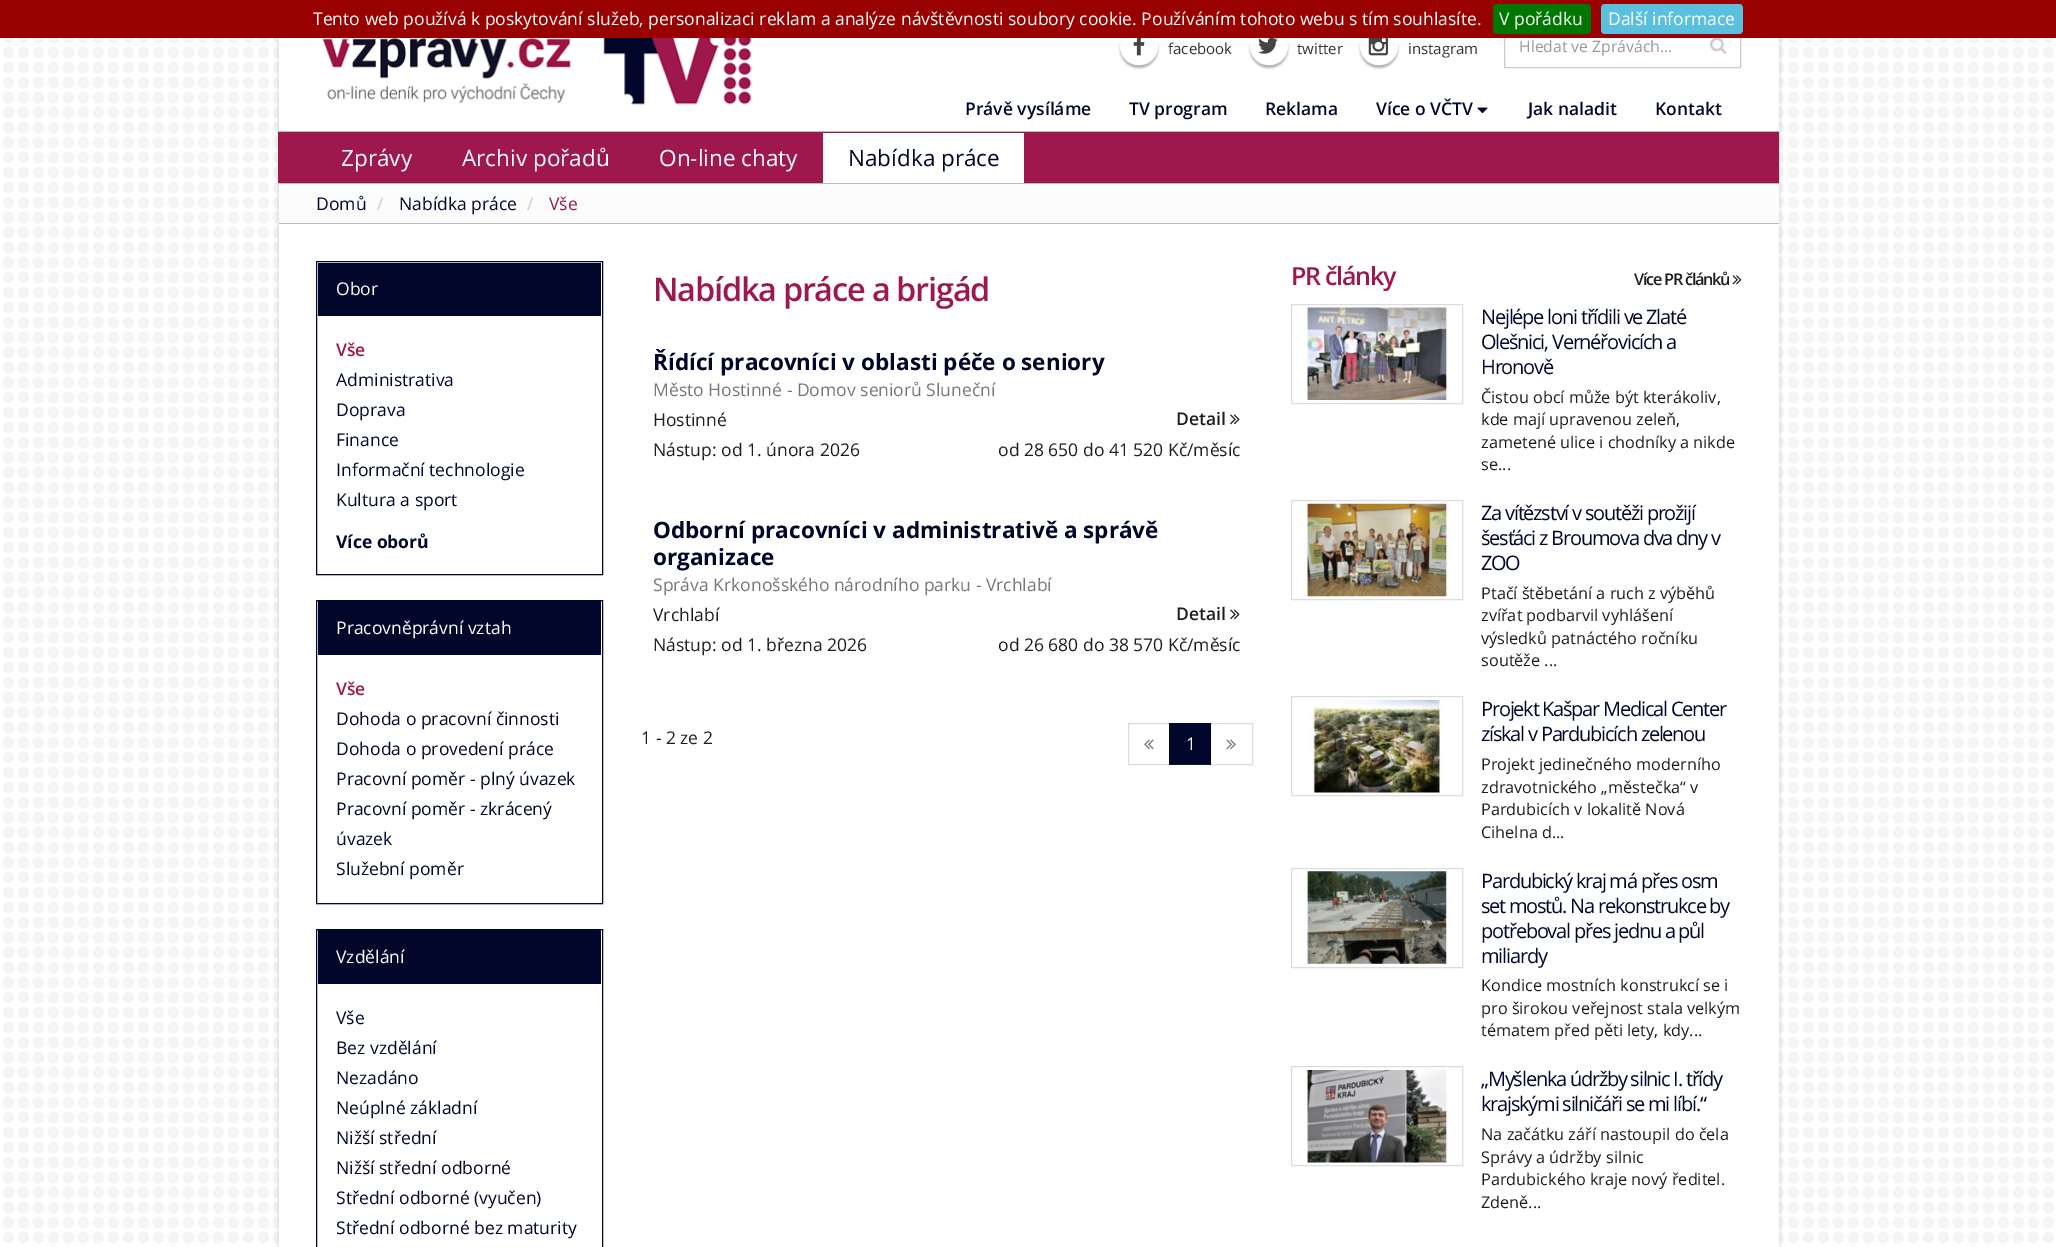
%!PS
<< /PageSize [2056 1247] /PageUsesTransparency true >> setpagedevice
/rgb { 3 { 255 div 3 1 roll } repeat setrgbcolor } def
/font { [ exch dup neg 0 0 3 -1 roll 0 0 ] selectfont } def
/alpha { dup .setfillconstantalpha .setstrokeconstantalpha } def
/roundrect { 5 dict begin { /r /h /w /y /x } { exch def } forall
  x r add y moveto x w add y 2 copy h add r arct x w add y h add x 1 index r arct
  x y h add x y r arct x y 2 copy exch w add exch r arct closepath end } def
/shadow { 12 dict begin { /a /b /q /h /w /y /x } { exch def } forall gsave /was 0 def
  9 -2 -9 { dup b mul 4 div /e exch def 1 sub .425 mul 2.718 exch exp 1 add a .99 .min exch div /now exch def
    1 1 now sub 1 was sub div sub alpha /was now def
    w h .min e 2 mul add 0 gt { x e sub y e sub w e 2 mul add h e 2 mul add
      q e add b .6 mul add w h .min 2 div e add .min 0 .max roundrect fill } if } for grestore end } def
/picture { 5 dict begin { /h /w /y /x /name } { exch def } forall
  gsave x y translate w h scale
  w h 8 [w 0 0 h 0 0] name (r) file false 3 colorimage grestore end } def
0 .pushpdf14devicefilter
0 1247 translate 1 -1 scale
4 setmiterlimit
255 255 255 rgb
0 0 2056 1247 rectfill
(img/1.rgb) 3 38 2051 1209 picture
0 0 0 rgb
279 0 1500 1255 0 2.5 0.15 shadow
255 255 255 rgb
279 38 1500 1209 rectfill
0 0 0 rgb
1120 30 38 38 19 1 0.3 shadow
255 255 255 rgb
1120 28 38 37 18.5 roundrect fill
0 0 0 rgb
1250 30 38 38 19 1 0.3 shadow
255 255 255 rgb
1250 28 38 37 18.5 roundrect fill
0 0 0 rgb
1360 30 38 38 19 1 0.3 shadow
255 255 255 rgb
1360 28 38 37 18.5 roundrect fill
204 204 204 rgb
1504.5 25.5 236 42 rectstroke
153 0 0 rgb
0 0 2056 38 rectfill
0 119 0 rgb
1493 4 98 30 4 roundrect fill
91 192 222 rgb
1601 4 142 30 4 roundrect fill
(img/2.rgb) 322 38 249 66 picture
(img/3.rgb) 603 38 149 67 picture
(img/4.rgb) 1133 38 12 18 picture
(img/5.rgb) 1258 38 20 16 picture
(img/6.rgb) 1368 38 21 18 picture
(img/7.rgb) 1710 38 17 16 picture
(img/8.rgb) 1477 107 11 7 picture
[
  [278 132 1501 51 158 24 77]
  [279 131 1500 1 187 187 187]
  [279 183 1500 1 187 187 187]
  [823 133 201 50 255 255 255]
  [279 184 1500 39 252 252 252]
  [279 223 1500 1 187 187 187]
] { aload pop rgb rectfill } forall
0 0 0 rgb
316 263 287 313 0 0.5 0.05 shadow
255 255 255 rgb
317 263 285 311 rectfill
1 7 43 rgb
316.5 261.5 286 313 rectstroke
318 263 283 53 rectfill
0 0 0 rgb
316 601 287 304 0 0.5 0.05 shadow
255 255 255 rgb
316.5 600.5 moveto 602.5 600.5 lineto 602.5 903.5 lineto 316.5 903.5 lineto closepath gsave fill grestore
1 7 43 rgb
stroke
318 601 283 54 rectfill
316.5 929.5 286 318 rectstroke
318 930 283 54 rectfill
(img/9.rgb) 1230 414 10 11 picture
(img/9.rgb) 1230 609 10 11 picture
221 221 221 rgb
1128.5 723.5 41 41 rectstroke
(img/10.rgb) 1144 739 10 11 picture
1210.5 723.5 42 41 rectstroke
[
  [1170 723 41 41 1 7 43]
  [1169 764 42 1 8 28 45]
  [1169 723 1 42 1 7 43]
] { aload pop rgb rectfill } forall
(img/11.rgb) 1226 739 10 11 picture
(img/12.rgb) 1732 275 10 10 picture
221 221 221 rgb
1291.5 304.5 171 99 rectstroke
(img/13.rgb) 1302 307 148 93 picture
1291.5 500.5 171 99 rectstroke
(img/14.rgb) 1302 503 150 94 picture
1291.5 696.5 171 99 rectstroke
(img/15.rgb) 1309 700 135 93 picture
1291.5 868.5 171 99 rectstroke
(img/16.rgb) 1303 871 149 93 picture
1291.5 1066.5 171 99 rectstroke
(img/17.rgb) 1303 1070 145 93 picture
/OpenSans-Regular 17.5 font
255 255 255 rgb
[
  [(Tento web používá k poskytování služeb, personalizaci reklam a analýze návštěvnosti soubory cookie. Používáním tohoto webu s tím souhlasíte.) 313 25]
  [(V pořádku) 1499 25]
  [(Další informace) 1608 25]
] { aload pop moveto show } forall
/OpenSans-Regular 15 font
51 51 51 rgb
[
  [(facebook) 1168 54]
  [(twitter) 1297 54]
  [(instagram) 1408 54]
] { aload pop moveto show } forall
/OpenSans-Regular 15.75 font
153 153 153 rgb
1519 52 moveto (Hledat ve Zprávách...) show
/OpenSans-SemiBold 17.5 font
1 7 43 rgb
[
  [(Právě vysíláme) 965 115]
  [(TV program) 1129 115]
  [(Reklama) 1265 115]
  [(Více o VČTV) 1376 115]
  [(Jak naladit) 1528 115]
  [(Kontakt) 1655 115]
] { aload pop moveto show } forall
/OpenSans-Regular 22.5 font
255 255 255 rgb
[
  [(Zprávy) 341 166]
  [(Archiv pořadů) 462 166]
  [(On-line chaty) 659 166]
] { aload pop moveto show } forall
1 7 43 rgb
848 166 moveto (Nabídka práce) show
/OpenSans-Regular 17.5 font
316 210 moveto (Domů) show
204 204 204 rgb
377 210 moveto (/) show
1 7 43 rgb
399 210 moveto (Nabídka práce) show
204 204 204 rgb
527 210 moveto (/) show
158 24 77 rgb
549 210 moveto (Vše) show
255 255 255 rgb
336 295 moveto (Obor) show
/OpenSans-SemiBold 17.5 font
158 24 77 rgb
336 356 moveto (Vše) show
/OpenSans-Regular 17.5 font
1 7 43 rgb
[
  [(Administrativa) 336 386]
  [(Doprava) 336 416]
  [(Finance) 336 446]
  [(Informační technologie) 336 476]
  [(Kultura a sport) 336 506]
] { aload pop moveto show } forall
/OpenSans-Bold 17.5 font
336 548 moveto (Více oborů) show
/OpenSans-Regular 17.5 font
255 255 255 rgb
336 634 moveto (Pracovněprávní vztah) show
/OpenSans-SemiBold 17.5 font
158 24 77 rgb
336 695 moveto (Vše) show
/OpenSans-Regular 17.5 font
1 7 43 rgb
[
  [(Dohoda o pracovní činnosti) 336 725]
  [(Dohoda o provedení práce) 336 755]
  [(Pracovní poměr - plný úvazek) 336 785]
  [(Pracovní poměr - zkrácený) 336 815]
  [(úvazek) 336 845]
  [(Služební poměr) 336 875]
] { aload pop moveto show } forall
255 255 255 rgb
336 963 moveto (Vzdělání) show
1 7 43 rgb
[
  [(Vše) 336 1024]
  [(Bez vzdělání) 336 1054]
  [(Nezadáno) 336 1084]
  [(Neúplné základní) 336 1114]
  [(Nižší střední) 336 1144]
  [(Nižší střední odborné) 336 1174]
  [(Střední odborné \(vyučen\)) 336 1204]
  [(Střední odborné bez maturity) 336 1234]
] { aload pop moveto show } forall
/OpenSans-SemiBold 32.5 font
158 24 77 rgb
653 301 moveto -1.25 0 (Nabídka práce a brigád) ashow
/OpenSans-Bold 22.5 font
1 7 43 rgb
653 370 moveto (Řídící pracovníci v oblasti péče o seniory) show
/OpenSans-Regular 17.5 font
119 119 119 rgb
653 396 moveto (Město Hostinné - Domov seniorů Sluneční) show
30 30 30 rgb
653 426 moveto (Hostinné) show
/OpenSans-SemiBold 17.5 font
1176 425 moveto (Detail) show
/OpenSans-Regular 17.5 font
653 456 moveto (Nástup: od 1. února 2026) show
998 456 moveto (od 28 650 do 41 520 Kč/měsíc) show
/OpenSans-Bold 22.5 font
1 7 43 rgb
653 538 moveto (Odborní pracovníci v administrativě a správě) show
653 565 moveto (organizace) show
/OpenSans-Regular 17.5 font
119 119 119 rgb
653 591 moveto (Správa Krkonošského národního parku - Vrchlabí) show
30 30 30 rgb
653 621 moveto (Vrchlabí) show
/OpenSans-SemiBold 17.5 font
1176 620 moveto (Detail) show
/OpenSans-Regular 17.5 font
[
  [(Nástup: od 1. března 2026) 653 651]
  [(od 26 680 do 38 570 Kč/měsíc) 998 651]
  [(1 - 2 ze 2) 641 744]
] { aload pop moveto show } forall
255 255 255 rgb
1186 750 moveto (1) show
/OpenSans-SemiBold 25 font
158 24 77 rgb
1291 285 moveto -1.25 0 (PR články) ashow
/OpenSans-SemiBold 16.25 font
30 30 30 rgb
1634 285 moveto -1.25 0 (Více PR článků) ashow
/OpenSans-Regular 20 font
1 7 43 rgb
1481 324 moveto -1.25 0 (Nejlépe loni třídili ve Zlaté) ashow
1481 349 moveto -1.25 0 (Olešnici, Vernéřovicích a) ashow
1481 374 moveto -1.25 0 (Hronově) ashow
/OpenSans-Regular 16.25 font
30 30 30 rgb
[
  [(Čistou obcí může být kterákoliv,) 1481 403]
  [(kde mají upravenou zeleň,) 1481 425]
  [(zametené ulice i chodníky a nikde) 1481 448]
  [(se...) 1481 470]
] { aload pop moveto show } forall
/OpenSans-Regular 20 font
1 7 43 rgb
1481 520 moveto -1.25 0 (Za vítězství v soutěži prožijí) ashow
1481 545 moveto -1.25 0 (šesťáci z Broumova dva dny v) ashow
1481 570 moveto -1.25 0 (ZOO) ashow
/OpenSans-Regular 16.25 font
30 30 30 rgb
[
  [(Ptačí štěbetání a ruch z výběhů) 1481 599]
  [(zvířat podbarvil vyhlášení) 1481 621]
  [(výsledků patnáctého ročníku) 1481 644]
  [(soutěže ...) 1481 666]
] { aload pop moveto show } forall
/OpenSans-Regular 20 font
1 7 43 rgb
1481 716 moveto -1.25 0 (Projekt Kašpar Medical Center) ashow
1481 741 moveto -1.25 0 (získal v Pardubicích zelenou) ashow
/OpenSans-Regular 16.25 font
30 30 30 rgb
[
  [(Projekt jedinečného moderního) 1481 770]
  [(zdravotnického „městečka“ v) 1481 793]
  [(Pardubicích v lokalitě Nová) 1481 815]
  [(Cihelna d...) 1481 838]
] { aload pop moveto show } forall
/OpenSans-Regular 20 font
1 7 43 rgb
1481 888 moveto -1.25 0 (Pardubický kraj má přes osm) ashow
1481 913 moveto -1.25 0 (set mostů. Na rekonstrukce by) ashow
1481 938 moveto -1.25 0 (potřeboval přes jednu a půl) ashow
1481 963 moveto -1.25 0 (miliardy) ashow
/OpenSans-Regular 16.25 font
30 30 30 rgb
[
  [(Kondice mostních konstrukcí se i) 1481 991]
  [(pro širokou veřejnost stala velkým) 1481 1014]
  [(tématem před pěti lety, kdy...) 1481 1036]
] { aload pop moveto show } forall
/OpenSans-Regular 20 font
1 7 43 rgb
1481 1086 moveto -1.25 0 („Myšlenka údržby silnic I. třídy) ashow
1481 1111 moveto -1.25 0 (krajskými silničáři se mi líbí.“) ashow
/OpenSans-Regular 16.25 font
30 30 30 rgb
[
  [(Na začátku září nastoupil do čela) 1481 1140]
  [(Správy a údržby silnic) 1481 1163]
  [(Pardubického kraje nový ředitel.) 1481 1185]
  [(Zdeně...) 1481 1208]
] { aload pop moveto show } forall
.poppdf14devicefilter showpage
